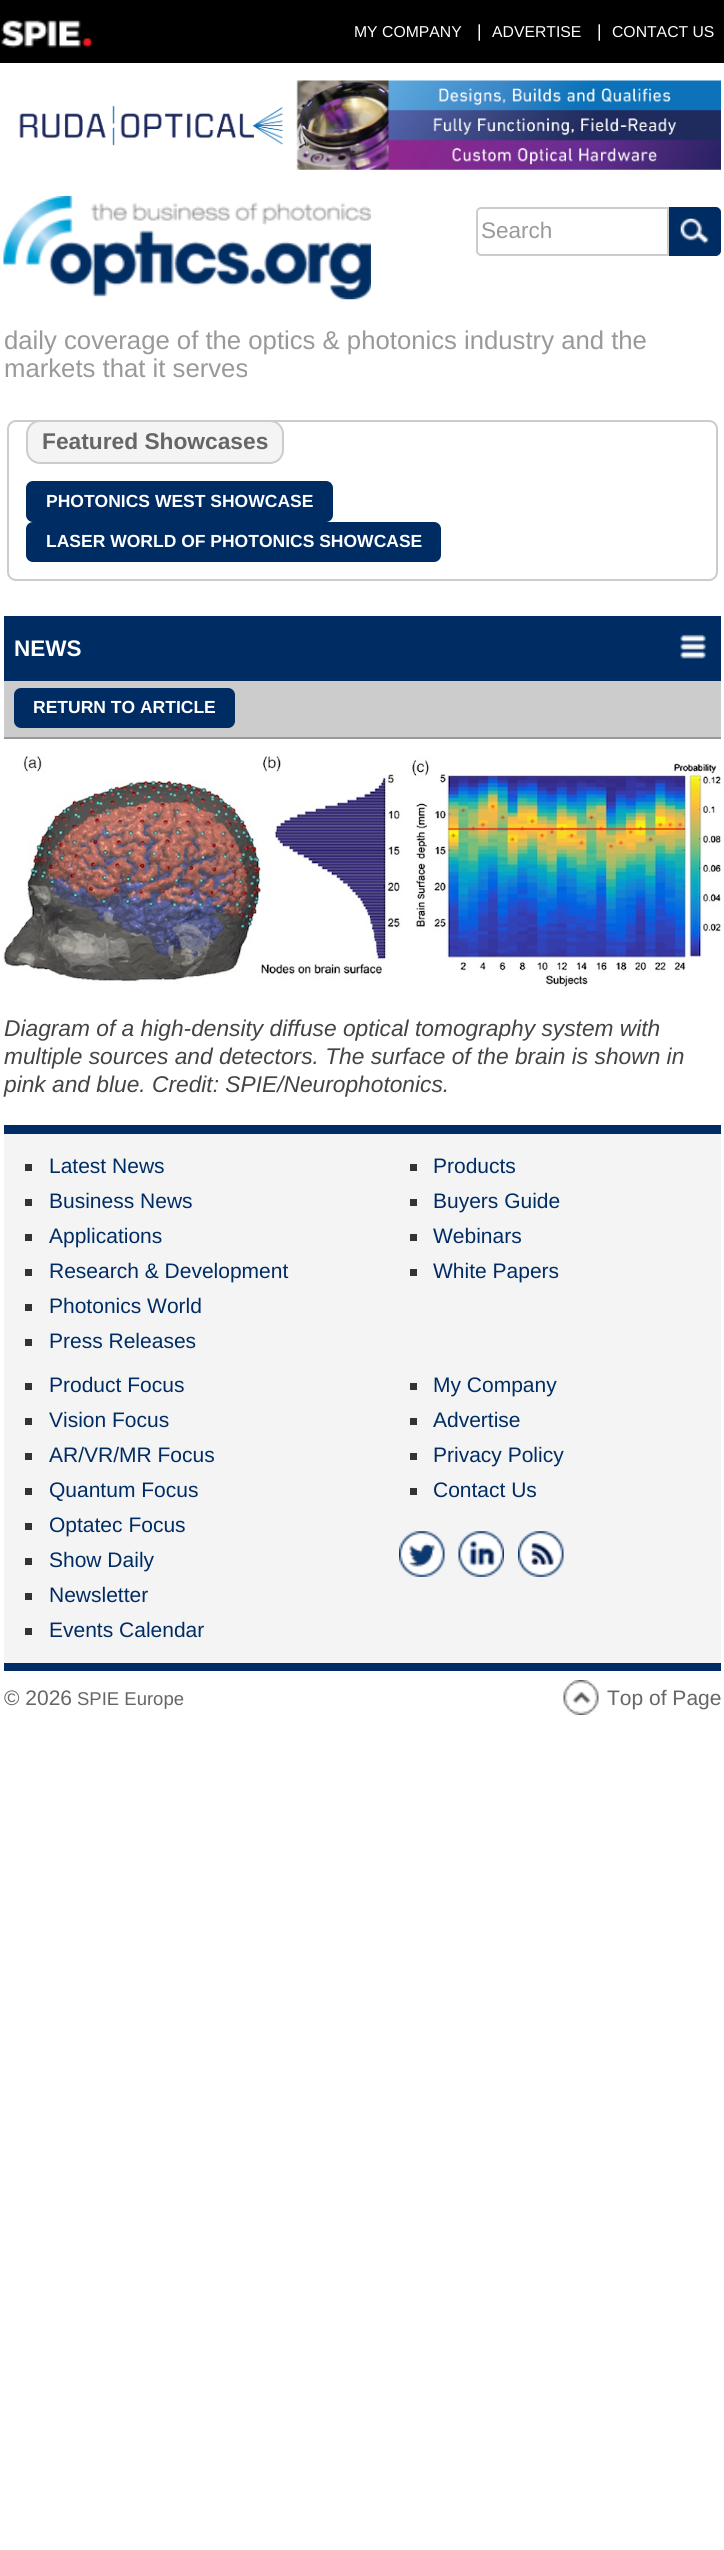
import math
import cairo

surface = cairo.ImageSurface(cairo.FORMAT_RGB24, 724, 2550)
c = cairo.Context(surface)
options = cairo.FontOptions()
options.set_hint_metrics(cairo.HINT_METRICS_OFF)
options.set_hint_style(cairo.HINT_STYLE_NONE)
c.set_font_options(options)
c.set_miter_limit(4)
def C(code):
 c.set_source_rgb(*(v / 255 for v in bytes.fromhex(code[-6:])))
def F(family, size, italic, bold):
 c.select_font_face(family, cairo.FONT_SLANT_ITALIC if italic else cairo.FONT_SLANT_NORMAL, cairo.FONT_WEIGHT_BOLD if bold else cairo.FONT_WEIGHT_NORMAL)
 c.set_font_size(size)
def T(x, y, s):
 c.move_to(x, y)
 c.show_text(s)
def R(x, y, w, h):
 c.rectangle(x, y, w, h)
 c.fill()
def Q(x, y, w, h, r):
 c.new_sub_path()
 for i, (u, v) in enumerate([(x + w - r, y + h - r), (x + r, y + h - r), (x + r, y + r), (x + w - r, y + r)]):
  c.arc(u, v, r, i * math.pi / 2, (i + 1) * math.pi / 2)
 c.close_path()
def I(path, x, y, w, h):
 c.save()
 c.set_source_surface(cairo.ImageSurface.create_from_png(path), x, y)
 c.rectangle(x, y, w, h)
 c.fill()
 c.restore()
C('ffffff')
c.paint()
C('000000')
R(0,0,724,63)
I('1.png',1,20,92,28)
F('Liberation Sans',15.75,0,0)
C('ffffff')
T(354,37,'MY COMPANY')
F('Liberation Sans',17.5,0,0)
T(477,37,'|')
F('Liberation Sans',15.75,0,0)
T(492,37,'ADVERTISE')
F('Liberation Sans',17.5,0,0)
T(597,37,'|')
F('Liberation Sans',15.75,0,0)
T(612,37,'CONTACT US')
I('2.png',19,80,702,90)
I('3.png',3,196,368,104)
c.new_path()
c.move_to(481,208)
c.line_to(668,208)
c.line_to(668,255)
c.line_to(481,255)
c.curve_to(479,255,477,253,477,251)
c.line_to(477,212)
c.curve_to(477,210,479,208,481,208)
c.close_path()
C('cccccc')
c.stroke()
F('Liberation Sans',22.5,0,0)
C('999999')
T(481,238,'Search')
c.new_path()
c.move_to(670,208)
c.line_to(716,208)
c.curve_to(718,208,720,210,720,212)
c.line_to(720,251)
c.curve_to(720,253,718,255,716,255)
c.line_to(670,255)
c.close_path()
C('002c64')
c.stroke()
R(671,209,48,45)
I('4.png',680,218,29,26)
F('Liberation Sans',25.7,0,0)
C('999999')
T(4,349,'daily coverage of the optics & photonics industry and the')
T(4,377,'markets that it serves')
Q(8,421,709,159,8)
C('cccccc')
c.stroke()
C('f4f4f4')
Q(27,421,256,42,13)
c.fill_preserve()
C('cccccc')
c.stroke()
F('Liberation Sans',22.75,0,1)
C('666666')
T(42,449,'Featured Showcases')
C('002c64')
Q(27,482,305,39,6)
c.fill_preserve()
c.stroke()
F('Liberation Sans',17.5,0,1)
C('ffffff')
T(46,507,'PHOTONICS WEST SHOWCASE')
C('002c64')
Q(27,523,413,38,6)
c.fill_preserve()
c.stroke()
C('ffffff')
T(46,547,'LASER WORLD OF PHOTONICS SHOWCASE')
C('002c64')
R(4,616,717,65)
F('Liberation Sans',22.5,0,1)
C('ffffff')
T(14,656,'NEWS')
I('5.png',680,634,26,25)
C('cccccc')
R(4,681,717,56)
C('999999')
R(4,737,717,2)
C('002c64')
Q(15,689,219,38,6)
c.fill_preserve()
c.stroke()
F('Liberation Sans',17.5,0,1)
C('ffffff')
T(33,713,'RETURN TO ARTICLE')
I('6.png',3,756,718,231)
F('Liberation Sans',22.75,1,0)
C('444444')
T(4,1036,'Diagram of a high-density diffuse optical tomography system with')
T(4,1064,'multiple sources and detectors. The surface of the brain is shown in')
T(4,1092,'pink and blue. Credit: SPIE/Neurophotonics.')
C('f4f4f4')
R(4,1134,717,529)
C('002c64')
R(4,1125,717,9)
R(4,1663,717,8)
C('333333')
R(25,1164,7,7)
F('Liberation Sans',21,0,0)
C('002c64')
T(49,1173,'Latest News')
C('333333')
R(25,1199,7,7)
C('002c64')
T(49,1208,'Business News')
C('333333')
R(25,1234,7,7)
C('002c64')
T(49,1243,'Applications')
C('333333')
R(25,1269,7,7)
C('002c64')
T(49,1278,'Research & Development')
C('333333')
R(25,1304,7,7)
C('002c64')
T(49,1313,'Photonics World')
C('333333')
R(25,1339,7,7)
C('002c64')
T(49,1348,'Press Releases')
C('333333')
R(410,1164,7,7)
C('002c64')
T(433,1173,'Products')
C('333333')
R(410,1199,7,7)
C('002c64')
T(433,1208,'Buyers Guide')
C('333333')
R(410,1234,7,7)
C('002c64')
T(433,1243,'Webinars')
C('333333')
R(410,1269,7,7)
C('002c64')
T(433,1278,'White Papers')
C('333333')
R(25,1383,7,7)
C('002c64')
T(49,1392,'Product Focus')
C('333333')
R(25,1418,7,7)
C('002c64')
T(49,1427,'Vision Focus')
C('333333')
R(25,1453,7,7)
C('002c64')
T(49,1462,'AR/VR/MR Focus')
C('333333')
R(25,1488,7,7)
C('002c64')
T(49,1497,'Quantum Focus')
C('333333')
R(25,1523,7,7)
C('002c64')
T(49,1532,'Optatec Focus')
C('333333')
R(25,1558,7,7)
C('002c64')
T(49,1567,'Show Daily')
C('333333')
R(25,1593,7,7)
C('002c64')
T(49,1602,'Newsletter')
C('333333')
R(25,1628,7,7)
C('002c64')
T(49,1637,'Events Calendar')
C('333333')
R(410,1383,7,7)
C('002c64')
T(433,1392,'My Company')
C('333333')
R(410,1418,7,7)
C('002c64')
T(433,1427,'Advertise')
C('333333')
R(410,1453,7,7)
C('002c64')
T(433,1462,'Privacy Policy')
C('333333')
R(410,1488,7,7)
C('002c64')
T(433,1497,'Contact Us')
I('7.png',399,1531,46,46)
I('8.png',458,1531,46,46)
I('9.png',518,1531,46,46)
C('666666')
T(4,1705,'© 2026')
F('Liberation Sans',18.5,0,0)
T(77,1705,'SPIE Europe')
I('10.png',563,1680,36,35)
F('Liberation Sans',21,0,0)
T(607,1705,'Top of Page')
surface.write_to_png('o.png')
